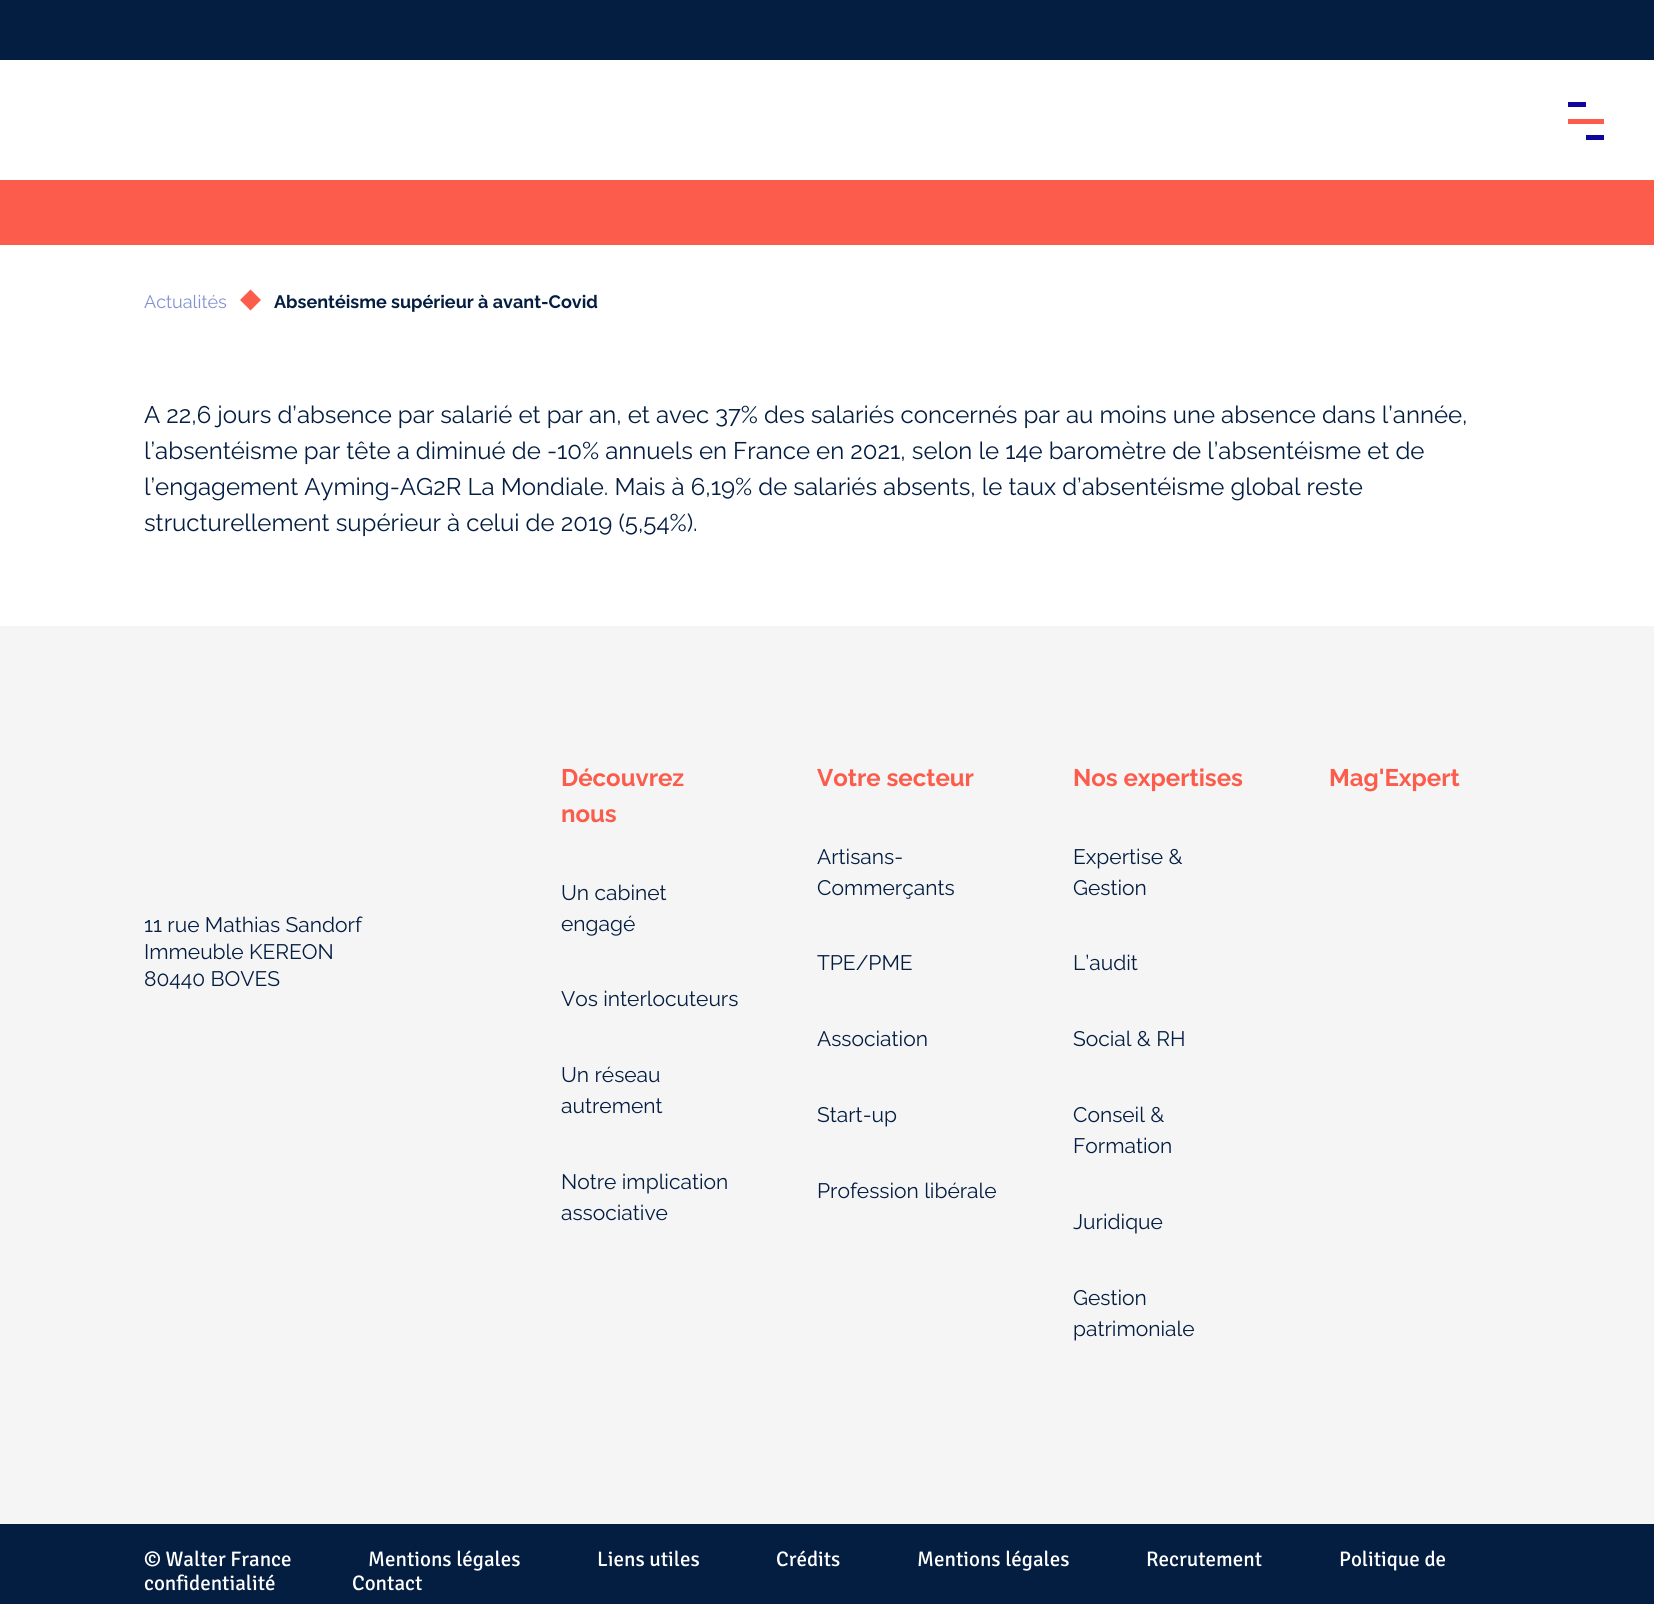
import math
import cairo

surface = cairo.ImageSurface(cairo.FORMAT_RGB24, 1654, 1604)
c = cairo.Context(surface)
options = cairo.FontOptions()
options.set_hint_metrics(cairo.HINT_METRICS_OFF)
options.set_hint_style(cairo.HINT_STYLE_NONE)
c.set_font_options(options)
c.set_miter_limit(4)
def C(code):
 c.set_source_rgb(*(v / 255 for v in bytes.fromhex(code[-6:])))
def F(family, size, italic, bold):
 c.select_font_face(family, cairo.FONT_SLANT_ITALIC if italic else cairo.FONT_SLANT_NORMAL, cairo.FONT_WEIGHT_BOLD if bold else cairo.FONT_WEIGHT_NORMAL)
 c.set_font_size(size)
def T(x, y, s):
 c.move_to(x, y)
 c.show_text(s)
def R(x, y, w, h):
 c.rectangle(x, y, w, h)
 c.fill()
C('ffffff')
c.paint()
C('041e42')
R(0,0,1654,60)
C('10069f')
R(1568,102,18,5)
C('fb5c4b')
R(1568,119,36,5)
C('10069f')
R(1586,135,18,5)
C('fb5c4b')
R(0,180,1654,65)
F('Raleway',18,0,0)
C('8292cf')
T(144,308,'Actualités')
C('fb5c4b')
c.new_path()
c.move_to(250.5,289.5)
c.line_to(261,300)
c.line_to(250.5,310.5)
c.line_to(240,300)
c.close_path()
c.fill()
F('Raleway',18,0,1)
C('041e42')
T(274,308,'Absentéisme supérieur à avant-Covid')
F('Raleway',24,0,0)
T(144,423,'A 22,6 jours d’absence par salarié et par an, et avec 37% des salariés concernés par au moins une absence dans l’année,')
T(144,459,'l’absentéisme par tête a diminué de -10% annuels en France en 2021, selon le 14e baromètre de l’absentéisme et de')
T(144,495,'l’engagement Ayming-AG2R La Mondiale. Mais à 6,19% de salariés absents, le taux d’absentéisme global reste')
T(144,531,'structurellement supérieur à celui de 2019 (5,54%).')
C('f5f5f5')
R(0,626,1654,898)
F('Raleway',21,0,0)
C('041e42')
T(144,932,'11 rue Mathias Sandorf')
T(144,959,'Immeuble KEREON')
T(144,986,'80440 BOVES')
F('Raleway',24,0,1)
C('fb5c4b')
T(561,786,'Découvrez')
T(561,822,'nous')
F('Raleway',21,0,0)
C('041e42')
T(561,900,'Un cabinet')
T(561,931,'engagé')
T(561,1006,'Vos interlocuteurs')
T(561,1082,'Un réseau')
T(561,1113,'autrement')
T(561,1189,'Notre implication')
T(561,1220,'associative')
F('Raleway',24,0,1)
C('fb5c4b')
T(817,786,'Votre secteur')
F('Raleway',21,0,0)
C('041e42')
T(817,864,'Artisans-')
T(817,895,'Commerçants')
T(817,970,'TPE/PME')
T(817,1046,'Association')
T(817,1122,'Start-up')
T(817,1198,'Profession libérale')
F('Raleway',24,0,1)
C('fb5c4b')
T(1073,786,'Nos expertises')
F('Raleway',21,0,0)
C('041e42')
T(1073,864,'Expertise &')
T(1073,895,'Gestion')
T(1073,970,'L’audit')
T(1073,1046,'Social & RH')
T(1073,1122,'Conseil &')
T(1073,1153,'Formation')
T(1073,1229,'Juridique')
T(1073,1305,'Gestion')
T(1073,1336,'patrimoniale')
F('Raleway',24,0,1)
C('fb5c4b')
T(1329,786,'Mag\'Expert')
C('041e42')
R(0,1524,1654,80)
F('Signika',21,0,0)
C('ffffff')
T(144,1566,'© Walter France')
T(368,1566,'Mentions légales')
T(597,1566,'Liens utiles')
T(776,1566,'Crédits')
T(917,1566,'Mentions légales')
T(1146,1566,'Recrutement')
T(1339,1566,'Politique de')
T(144,1590,'confidentialité')
T(352,1590,'Contact')
surface.write_to_png('o.png')
